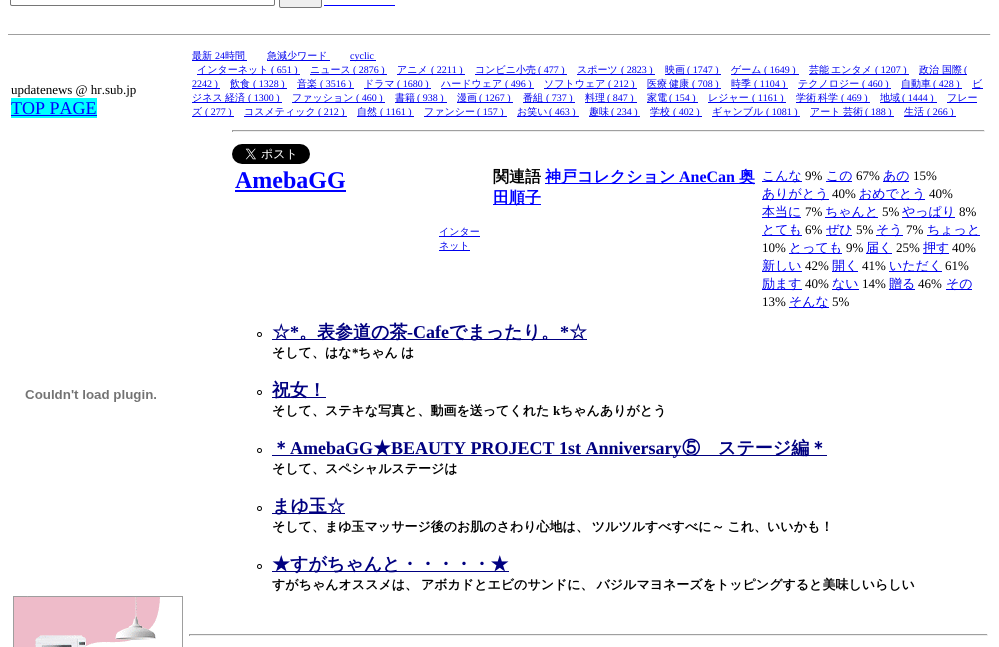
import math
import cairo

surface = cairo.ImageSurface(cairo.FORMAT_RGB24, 999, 647)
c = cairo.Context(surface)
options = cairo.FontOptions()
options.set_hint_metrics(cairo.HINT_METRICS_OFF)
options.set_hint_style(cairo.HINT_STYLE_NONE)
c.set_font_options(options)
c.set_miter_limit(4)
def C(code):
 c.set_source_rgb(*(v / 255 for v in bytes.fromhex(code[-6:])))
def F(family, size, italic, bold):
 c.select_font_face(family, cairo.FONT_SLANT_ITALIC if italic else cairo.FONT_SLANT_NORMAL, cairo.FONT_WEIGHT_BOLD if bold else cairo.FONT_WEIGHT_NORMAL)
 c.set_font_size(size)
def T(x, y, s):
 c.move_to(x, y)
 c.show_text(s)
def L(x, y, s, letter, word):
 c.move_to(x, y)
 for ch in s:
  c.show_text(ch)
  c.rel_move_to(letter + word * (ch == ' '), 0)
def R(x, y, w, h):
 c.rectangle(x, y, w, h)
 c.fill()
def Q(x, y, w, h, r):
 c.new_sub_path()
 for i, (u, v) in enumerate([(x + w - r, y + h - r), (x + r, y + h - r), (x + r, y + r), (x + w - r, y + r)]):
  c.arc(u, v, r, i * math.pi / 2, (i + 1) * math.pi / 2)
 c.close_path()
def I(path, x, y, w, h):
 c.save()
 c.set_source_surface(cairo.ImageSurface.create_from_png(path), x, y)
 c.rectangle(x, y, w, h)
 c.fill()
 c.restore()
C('ffffff')
c.paint()
Q(10.5,-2.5,264,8,1.5)
C('767676')
c.set_line_width(1)
c.stroke()
C('efefef')
Q(279.5,-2.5,42,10,1.5)
c.fill_preserve()
C('767676')
c.stroke()
C('0000ff')
R(324,5,71,1)
C('9f9f9f')
R(8,34,983,1)
C('eeeeee')
R(990,34,1,1)
F('Liberation Serif',13,0,0)
C('000000')
T(11,94,'updatenews @ hr.sub.jp')
C('00ffff')
R(11,98,86,20)
F('Liberation Serif',18,0,0)
C('0000ff')
T(11,114,'TOP PAGE')
R(11,115,86,1)
I('1.png',25,390,131,12)
I('2.png',13,596,170,51)
C('0000ee')
R(192,60,55,1)
F('WenQuanYi Zen Hei Medium',10,0,0)
T(192,59,'最新')
F('Liberation Serif',10,0,0)
T(215,59,'24')
F('WenQuanYi Zen Hei Medium',10,0,0)
T(225,59,'時間')
R(267,60,63,1)
T(267,59,'急減少ワード')
R(350,60,26,1)
F('Liberation Serif',10,0,0)
T(350,59,'cyclic')
R(197,74,103,1)
F('WenQuanYi Zen Hei Medium',10,0,0)
T(197,73,'インターネット')
F('Liberation Serif',10,0,0)
T(271,73,'( 651 )')
F('WenQuanYi Zen Hei Medium',10,0,0)
T(310,73,'ニュース')
R(310,74,77,1)
F('Liberation Serif',10,0,0)
T(353,73,'( 2876 )')
F('WenQuanYi Zen Hei Medium',10,0,0)
T(397,73,'アニメ')
R(397,74,68,1)
F('Liberation Serif',10,0,0)
T(431,73,'( 2211 )')
R(475,74,92,1)
F('WenQuanYi Zen Hei Medium',10,0,0)
T(475,73,'コンビニ小売')
F('Liberation Serif',10,0,0)
T(538,73,'( 477 )')
R(577,74,78,1)
F('WenQuanYi Zen Hei Medium',10,0,0)
T(577,73,'スポーツ')
F('Liberation Serif',10,0,0)
T(621,73,'( 2823 )')
R(665,74,56,1)
F('WenQuanYi Zen Hei Medium',10,0,0)
T(665,73,'映画')
F('Liberation Serif',10,0,0)
T(687,73,'( 1747 )')
R(731,74,68,1)
F('WenQuanYi Zen Hei Medium',10,0,0)
T(731,73,'ゲーム')
F('Liberation Serif',10,0,0)
T(764,73,'( 1649 )')
R(809,74,100,1)
F('WenQuanYi Zen Hei Medium',10,0,0)
T(809,73,'芸能')
T(831,73,'エンタメ')
F('Liberation Serif',10,0,0)
T(875,73,'( 1207 )')
R(919,74,48,1)
F('WenQuanYi Zen Hei Medium',10,0,0)
T(919,73,'政治 国際')
F('Liberation Serif',10,0,0)
T(964,73,'(')
R(192,88,28,1)
T(192,87,'2242 )')
R(230,88,57,1)
F('WenQuanYi Zen Hei Medium',10,0,0)
T(230,87,'飲食')
F('Liberation Serif',10,0,0)
T(253,87,'( 1328 )')
R(297,88,57,1)
F('WenQuanYi Zen Hei Medium',10,0,0)
T(297,87,'音楽')
F('Liberation Serif',10,0,0)
T(320,87,'( 3516 )')
R(364,88,67,1)
F('WenQuanYi Zen Hei Medium',10,0,0)
T(364,87,'ドラマ')
F('Liberation Serif',10,0,0)
T(397,87,'( 1680 )')
R(441,88,93,1)
F('WenQuanYi Zen Hei Medium',10,0,0)
T(441,87,'ハードウェア')
F('Liberation Serif',10,0,0)
T(505,87,'( 496 )')
R(544,88,93,1)
F('WenQuanYi Zen Hei Medium',10,0,0)
T(544,87,'ソフトウェア')
F('Liberation Serif',10,0,0)
T(608,87,'( 212 )')
R(647,88,74,1)
F('WenQuanYi Zen Hei Medium',10,0,0)
T(647,87,'医療')
T(669,87,'健康')
F('Liberation Serif',10,0,0)
T(692,87,'( 708 )')
R(731,88,57,1)
F('WenQuanYi Zen Hei Medium',10,0,0)
T(731,87,'時季')
F('Liberation Serif',10,0,0)
T(754,87,'( 1104 )')
R(798,88,93,1)
F('WenQuanYi Zen Hei Medium',10,0,0)
T(798,87,'テクノロジー')
F('Liberation Serif',10,0,0)
T(862,87,'( 460 )')
R(901,88,61,1)
F('WenQuanYi Zen Hei Medium',10,0,0)
T(901,87,'自動車')
F('Liberation Serif',10,0,0)
T(933,87,'( 428 )')
F('WenQuanYi Zen Hei Medium',10,0,0)
T(972,87,'ビ')
R(972,88,11,1)
R(192,102,90,1)
T(192,101,'ジネス')
T(225,101,'経済')
F('Liberation Serif',10,0,0)
T(248,101,'( 1300 )')
R(292,102,93,1)
F('WenQuanYi Zen Hei Medium',10,0,0)
T(292,101,'ファッション')
F('Liberation Serif',10,0,0)
T(356,101,'( 460 )')
R(395,102,52,1)
F('WenQuanYi Zen Hei Medium',10,0,0)
T(395,101,'書籍')
F('Liberation Serif',10,0,0)
T(417,101,'( 938 )')
R(457,102,56,1)
F('WenQuanYi Zen Hei Medium',10,0,0)
T(457,101,'漫画')
F('Liberation Serif',10,0,0)
T(479,101,'( 1267 )')
R(523,102,52,1)
F('WenQuanYi Zen Hei Medium',10,0,0)
T(523,101,'番組')
F('Liberation Serif',10,0,0)
T(546,101,'( 737 )')
R(585,102,52,1)
F('WenQuanYi Zen Hei Medium',10,0,0)
T(585,101,'料理')
F('Liberation Serif',10,0,0)
T(607,101,'( 847 )')
R(647,102,51,1)
F('WenQuanYi Zen Hei Medium',10,0,0)
T(647,101,'家電')
F('Liberation Serif',10,0,0)
T(669,101,'( 154 )')
R(708,102,78,1)
F('WenQuanYi Zen Hei Medium',10,0,0)
T(708,101,'レジャー')
F('Liberation Serif',10,0,0)
T(752,101,'( 1161 )')
R(796,102,74,1)
F('WenQuanYi Zen Hei Medium',10,0,0)
T(796,101,'学術')
T(818,101,'科学')
F('Liberation Serif',10,0,0)
T(841,101,'( 469 )')
R(880,102,57,1)
F('WenQuanYi Zen Hei Medium',10,0,0)
T(880,101,'地域')
F('Liberation Serif',10,0,0)
T(902,101,'( 1444 )')
F('WenQuanYi Zen Hei Medium',10,0,0)
T(947,101,'フレー')
R(947,102,30,1)
T(192,115,'ズ')
R(192,116,42,1)
F('Liberation Serif',10,0,0)
T(205,115,'( 277 )')
R(244,116,103,1)
F('WenQuanYi Zen Hei Medium',10,0,0)
T(244,115,'コスメティック')
F('Liberation Serif',10,0,0)
T(318,115,'( 212 )')
R(357,116,57,1)
F('WenQuanYi Zen Hei Medium',10,0,0)
T(357,115,'自然')
F('Liberation Serif',10,0,0)
T(380,115,'( 1161 )')
F('WenQuanYi Zen Hei Medium',10,0,0)
T(424,115,'ファンシー')
R(424,116,83,1)
F('Liberation Serif',10,0,0)
T(477,115,'( 157 )')
R(517,116,62,1)
F('WenQuanYi Zen Hei Medium',10,0,0)
T(517,115,'お笑い')
F('Liberation Serif',10,0,0)
T(549,115,'( 463 )')
R(589,116,51,1)
F('WenQuanYi Zen Hei Medium',10,0,0)
T(589,115,'趣味')
F('Liberation Serif',10,0,0)
T(611,115,'( 234 )')
R(650,116,52,1)
F('WenQuanYi Zen Hei Medium',10,0,0)
T(650,115,'学校')
F('Liberation Serif',10,0,0)
T(673,115,'( 402 )')
R(712,116,88,1)
F('WenQuanYi Zen Hei Medium',10,0,0)
T(712,115,'ギャンブル')
F('Liberation Serif',10,0,0)
T(766,115,'( 1081 )')
R(810,116,84,1)
F('WenQuanYi Zen Hei Medium',10,0,0)
T(810,115,'アート')
T(843,115,'芸術')
F('Liberation Serif',10,0,0)
T(865,115,'( 188 )')
R(904,116,52,1)
F('WenQuanYi Zen Hei Medium',10,0,0)
T(904,115,'生活')
F('Liberation Serif',10,0,0)
T(927,115,'( 266 )')
C('9f9f9f')
R(232,130,753,1)
C('eeeeee')
R(984,130,1,2)
R(232,131,753,1)
C('9f9f9f')
R(232,130,1,2)
I('3.png',232,144,78,20)
F('Liberation Serif',24,0,1)
C('0000ff')
T(235,188,'AmebaGG')
R(235,190,111,2)
F('WenQuanYi Zen Hei',16,0,1)
C('000000')
T(493,182,'関連語')
C('0000ff')
R(545,183,210,1)
T(545,182,'神戸コレクション')
F('Liberation Serif',16,0,1)
T(679,182,'AneCan')
F('WenQuanYi Zen Hei',16,0,1)
T(739,182,'奥')
R(493,204,48,1)
T(493,203,'田順子')
C('0000ee')
R(762,181,40,1)
F('WenQuanYi Zen Hei Medium',13,0,0)
T(762,180,'こんな')
F('Liberation Serif',13,0,0)
C('000000')
T(805,180,'9%')
C('0000ee')
R(826,181,26,1)
F('WenQuanYi Zen Hei Medium',13,0,0)
T(826,180,'この')
F('Liberation Serif',13,0,0)
C('000000')
T(856,180,'67%')
C('0000ee')
R(883,181,26,1)
F('WenQuanYi Zen Hei Medium',13,0,0)
T(883,180,'あの')
F('Liberation Serif',13,0,0)
C('000000')
T(913,180,'15%')
C('0000ee')
R(762,199,67,1)
F('WenQuanYi Zen Hei Medium',13,0,0)
T(762,198,'ありがとう')
F('Liberation Serif',13,0,0)
C('000000')
T(832,198,'40%')
C('0000ee')
R(859,199,66,1)
F('WenQuanYi Zen Hei Medium',13,0,0)
T(859,198,'おめでとう')
F('Liberation Serif',13,0,0)
C('000000')
T(929,198,'40%')
C('0000ee')
R(762,217,39,1)
F('WenQuanYi Zen Hei Medium',13,0,0)
T(762,216,'本当に')
F('Liberation Serif',13,0,0)
C('000000')
T(805,216,'7%')
C('0000ee')
R(825,217,53,1)
F('WenQuanYi Zen Hei Medium',13,0,0)
T(825,216,'ちゃんと')
F('Liberation Serif',13,0,0)
C('000000')
T(882,216,'5%')
C('0000ee')
R(902,217,53,1)
F('WenQuanYi Zen Hei Medium',13,0,0)
T(902,216,'やっぱり')
F('Liberation Serif',13,0,0)
C('000000')
T(959,216,'8%')
C('0000ee')
R(762,235,40,1)
F('WenQuanYi Zen Hei Medium',13,0,0)
T(762,234,'とても')
F('Liberation Serif',13,0,0)
C('000000')
T(805,234,'6%')
C('0000ee')
R(826,235,26,1)
F('WenQuanYi Zen Hei Medium',13,0,0)
T(826,234,'ぜひ')
F('Liberation Serif',13,0,0)
C('000000')
T(856,234,'5%')
C('0000ee')
R(876,235,27,1)
F('WenQuanYi Zen Hei Medium',13,0,0)
T(876,234,'そう')
F('Liberation Serif',13,0,0)
C('000000')
T(906,234,'7%')
C('0000ee')
R(927,235,53,1)
F('WenQuanYi Zen Hei Medium',13,0,0)
T(927,234,'ちょっと')
F('Liberation Serif',13,0,0)
C('000000')
T(762,252,'10%')
C('0000ee')
R(789,253,53,1)
F('WenQuanYi Zen Hei Medium',13,0,0)
T(789,252,'とっても')
F('Liberation Serif',13,0,0)
C('000000')
T(846,252,'9%')
C('0000ee')
R(866,253,26,1)
F('WenQuanYi Zen Hei Medium',13,0,0)
T(866,252,'届く')
F('Liberation Serif',13,0,0)
C('000000')
T(896,252,'25%')
C('0000ee')
R(923,253,26,1)
F('WenQuanYi Zen Hei Medium',13,0,0)
T(923,252,'押す')
F('Liberation Serif',13,0,0)
C('000000')
T(952,252,'40%')
C('0000ee')
R(762,271,40,1)
F('WenQuanYi Zen Hei Medium',13,0,0)
T(762,270,'新しい')
F('Liberation Serif',13,0,0)
C('000000')
T(805,270,'42%')
C('0000ee')
R(832,271,26,1)
F('WenQuanYi Zen Hei Medium',13,0,0)
T(832,270,'開く')
F('Liberation Serif',13,0,0)
C('000000')
T(862,270,'41%')
C('0000ee')
R(889,271,53,1)
F('WenQuanYi Zen Hei Medium',13,0,0)
T(889,270,'いただく')
F('Liberation Serif',13,0,0)
C('000000')
T(945,270,'61%')
C('0000ee')
R(762,289,40,1)
F('WenQuanYi Zen Hei Medium',13,0,0)
T(762,288,'励ます')
F('Liberation Serif',13,0,0)
C('000000')
T(805,288,'40%')
C('0000ee')
R(832,289,27,1)
F('WenQuanYi Zen Hei Medium',13,0,0)
T(832,288,'ない')
F('Liberation Serif',13,0,0)
C('000000')
T(862,288,'14%')
C('0000ee')
R(889,289,26,1)
F('WenQuanYi Zen Hei Medium',13,0,0)
T(889,288,'贈る')
F('Liberation Serif',13,0,0)
C('000000')
T(918,288,'46%')
C('0000ee')
R(946,289,26,1)
F('WenQuanYi Zen Hei Medium',13,0,0)
T(946,288,'その')
F('Liberation Serif',13,0,0)
C('000000')
T(762,306,'13%')
C('0000ee')
R(789,307,40,1)
F('WenQuanYi Zen Hei Medium',13,0,0)
T(789,306,'そんな')
F('Liberation Serif',13,0,0)
C('000000')
T(832,306,'5%')
C('0000ee')
R(439,236,41,1)
F('WenQuanYi Zen Hei Medium',10,0,0)
T(439,235,'インター')
R(439,250,31,1)
T(439,249,'ネット')
C('000080')
R(272,339,315,1)
F('WenQuanYi Zen Hei',18,0,1)
T(272,338,'☆')
F('Liberation Serif',18,0,1)
T(290,338,'*')
F('WenQuanYi Zen Hei',18,0,1)
T(299,338,'。表参道の茶')
F('Liberation Serif',18,0,1)
T(407,338,'-Cafe')
F('WenQuanYi Zen Hei',18,0,1)
T(449,338,'でまったり。')
F('Liberation Serif',18,0,1)
T(560,338,'*')
F('WenQuanYi Zen Hei',18,0,1)
T(569,338,'☆')
c.new_path()
c.arc(259.5,334.5,2,0,2 * math.pi)
C('000000')
c.stroke()
F('WenQuanYi Zen Hei',13,0,1)
T(272,357,'そして、はな')
F('Liberation Serif',13,0,1)
T(352,357,'*')
F('WenQuanYi Zen Hei',13,0,1)
T(358,357,'ちゃん')
T(401,357,'は')
c.new_path()
c.arc(259.5,392.5,2,0,2 * math.pi)
c.stroke()
C('000080')
R(272,397,54,1)
F('WenQuanYi Zen Hei',18,0,1)
T(272,396,'祝女！')
F('WenQuanYi Zen Hei',13,0,1)
C('000000')
T(272,415,'そして、ステキな写真と、動画を送ってくれた')
F('Liberation Serif',13,0,1)
T(553,415,'k')
F('WenQuanYi Zen Hei',13,0,1)
T(560,415,'ちゃんありがとう')
c.new_path()
c.arc(259.5,450.5,2,0,2 * math.pi)
c.stroke()
F('WenQuanYi Zen Hei',18,0,1)
C('000080')
T(272,454,'＊')
F('Liberation Serif',18,0,1)
T(290,454,'AmebaGG')
R(272,455,555,1)
F('WenQuanYi Zen Hei',18,0,1)
T(373,454,'★')
F('Liberation Serif',18,0,1)
T(391,454,'BEAUTY PROJECT 1st Anniversary')
F('WenQuanYi Zen Hei',18,0,1)
T(682,454,'⑤　ステージ編＊')
F('WenQuanYi Zen Hei',13,0,1)
C('000000')
T(272,473,'そして、スペシャルステージは')
c.new_path()
c.arc(259.5,508.5,2,0,2 * math.pi)
c.stroke()
C('000080')
R(272,513,73,1)
F('WenQuanYi Zen Hei',18,0,1)
T(272,512,'まゆ玉☆')
F('WenQuanYi Zen Hei',13,0,1)
C('000000')
L(272,531,'そして、まゆ玉マッサージ後のお肌のさわり心地は、 ツルツルすべすべに～ これ、いいかも！',0,-1)
c.new_path()
c.arc(259.5,566.5,2,0,2 * math.pi)
c.stroke()
C('000080')
R(272,571,237,1)
F('WenQuanYi Zen Hei',18,0,1)
T(272,570,'★すがちゃんと・・・・・★')
F('WenQuanYi Zen Hei',13,0,1)
C('000000')
L(272,589,'すがちゃんオススメは、 アボカドとエビのサンドに、 バジルマヨネーズをトッピングすると美味しいらしい',0,-1)
C('9f9f9f')
R(189,634,799,1)
C('eeeeee')
R(987,634,1,2)
R(189,635,799,1)
C('9f9f9f')
R(189,634,1,2)
surface.write_to_png('o.png')
